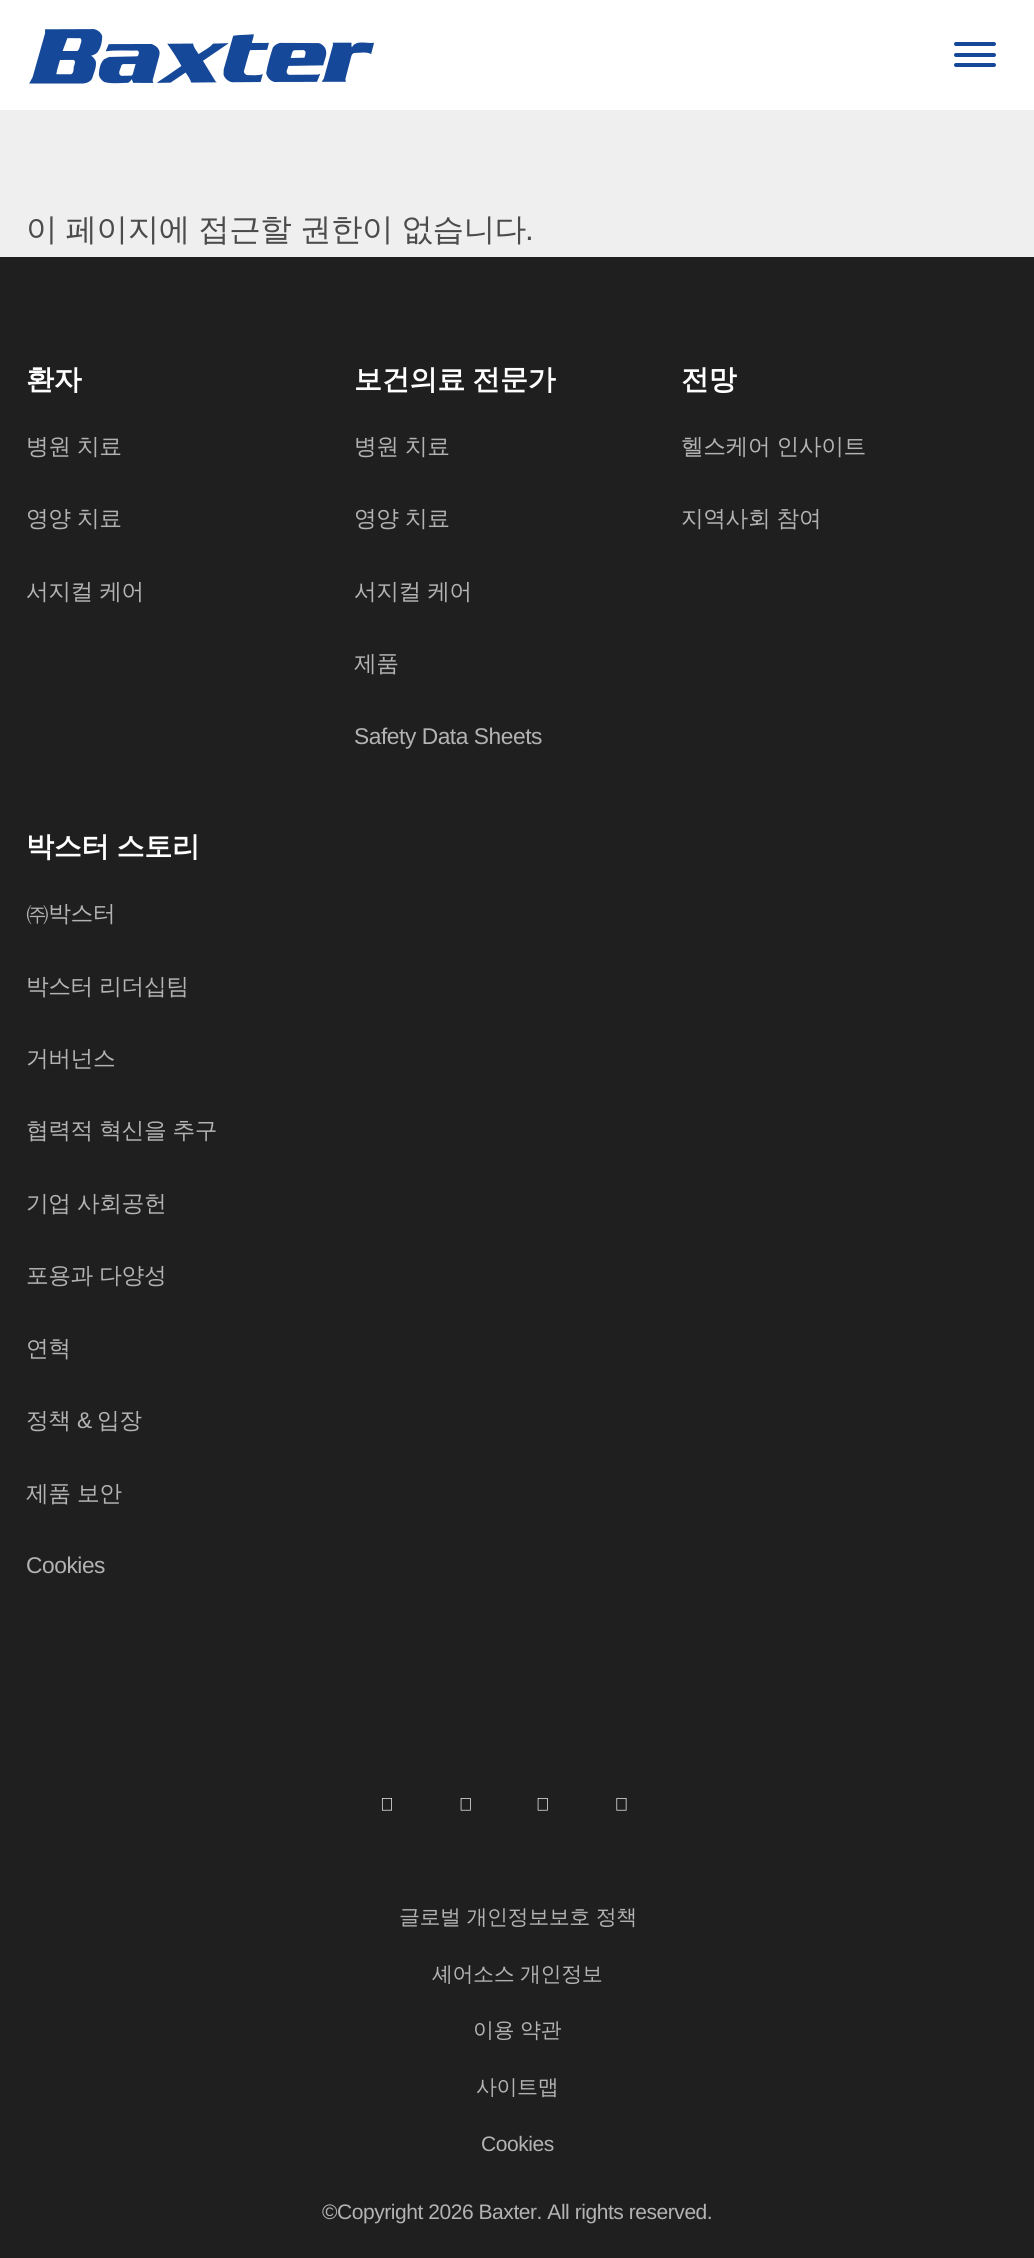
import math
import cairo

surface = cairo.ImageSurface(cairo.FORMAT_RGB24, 1034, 2258)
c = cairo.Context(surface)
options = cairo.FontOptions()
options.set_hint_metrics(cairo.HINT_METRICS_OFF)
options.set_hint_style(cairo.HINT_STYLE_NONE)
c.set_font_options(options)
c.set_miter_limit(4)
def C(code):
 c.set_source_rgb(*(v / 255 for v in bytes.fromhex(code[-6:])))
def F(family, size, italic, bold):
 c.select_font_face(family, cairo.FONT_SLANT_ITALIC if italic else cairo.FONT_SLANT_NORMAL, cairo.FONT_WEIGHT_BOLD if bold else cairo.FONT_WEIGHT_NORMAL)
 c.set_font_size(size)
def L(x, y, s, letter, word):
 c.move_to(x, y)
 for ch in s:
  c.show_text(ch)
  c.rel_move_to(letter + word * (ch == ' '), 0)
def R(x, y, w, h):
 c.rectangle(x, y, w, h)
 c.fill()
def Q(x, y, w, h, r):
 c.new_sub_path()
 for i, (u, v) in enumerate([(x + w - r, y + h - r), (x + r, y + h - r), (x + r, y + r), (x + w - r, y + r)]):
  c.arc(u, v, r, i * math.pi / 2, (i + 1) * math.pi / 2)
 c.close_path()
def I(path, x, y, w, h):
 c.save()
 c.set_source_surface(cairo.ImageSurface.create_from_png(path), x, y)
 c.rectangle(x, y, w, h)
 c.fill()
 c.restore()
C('efefef')
c.paint()
C('ffffff')
R(0,0,1034,110)
I('1.png',29,29,345,55)
C('154898')
Q(954,53,42,4,2)
c.fill()
Q(954,42,42,4,2)
c.fill()
Q(954,63,42,4,2)
c.fill()
F('WenQuanYi Zen Hei Medium',31.5,0,0)
C('4b4b4b')
L(26,240,'이 페이지에 접근할 권한이 없습니다',-.45,-.5)
F('Liberation Sans',31.5,0,0)
L(525,240,'.',-.45,0)
C('1f1f1f')
R(0,257,1034,2001)
F('WenQuanYi Zen Hei',28,0,1)
C('ffffff')
L(26,389,'환자',-.25,0)
F('WenQuanYi Zen Hei Medium',22.75,0,0)
C('b3b3b3')
L(26,454,'병원 치료',-.45,0)
L(26,526,'영양 치료',-.45,0)
L(26,599,'서지컬 케어',-.45,0)
F('WenQuanYi Zen Hei',28,0,1)
C('ffffff')
L(354,389,'보건의료 전문가',-.25,-1)
F('WenQuanYi Zen Hei Medium',22.75,0,0)
C('b3b3b3')
L(354,454,'병원 치료',-.45,0)
L(354,526,'영양 치료',-.45,0)
L(354,599,'서지컬 케어',-.45,0)
L(354,671,'제품',-.45,0)
F('Liberation Sans',22.75,0,0)
L(354,744,'Safety Data Sheets',-.45,0)
F('WenQuanYi Zen Hei',28,0,1)
C('ffffff')
L(681,389,'전망',-.25,0)
F('WenQuanYi Zen Hei Medium',22.75,0,0)
C('b3b3b3')
L(681,454,'헬스케어 인사이트',-.45,0)
L(681,526,'지역사회 참여',-.45,0)
F('WenQuanYi Zen Hei',28,0,1)
C('ffffff')
L(26,856,'박스터 스토리',-.25,-1)
F('WenQuanYi Zen Hei Medium',22.75,0,0)
C('b3b3b3')
L(26,921,'㈜박스터',-.45,0)
L(26,994,'박스터 리더십팀',-.45,0)
L(26,1066,'거버넌스',-.45,0)
L(26,1138,'협력적 혁신을 추구',-.45,0)
L(26,1211,'기업 사회공헌',-.45,0)
L(26,1283,'포용과 다양성',-.45,0)
L(26,1356,'연혁',-.45,0)
L(26,1428,'정책',-.45,0)
F('Liberation Sans',22.75,0,0)
L(77,1428,'&',-.45,0)
F('WenQuanYi Zen Hei Medium',22.75,0,0)
L(97,1428,'입장',-.45,0)
L(26,1501,'제품 보안',-.45,0)
F('Liberation Sans',22.75,0,0)
L(26,1573,'Cookies',-.45,0)
I('2.png',381,1798,11,13)
I('3.png',460,1798,11,13)
I('3.png',537,1798,11,13)
I('4.png',616,1798,11,13)
F('WenQuanYi Zen Hei Medium',21,0,0)
L(399,1924,'글로벌 개인정보보호 정책',-.45,0)
L(432,1981,'셰어소스 개인정보',-.45,0)
L(473,2037,'이용 약관',-.45,0)
L(476,2094,'사이트맵',-.45,0)
F('Liberation Sans',21,0,0)
L(481,2151,'Cookies',-.45,0)
L(322,2219,'©Copyright 2026 Baxter. All rights reserved.',-.45,0)
surface.write_to_png('o.png')
